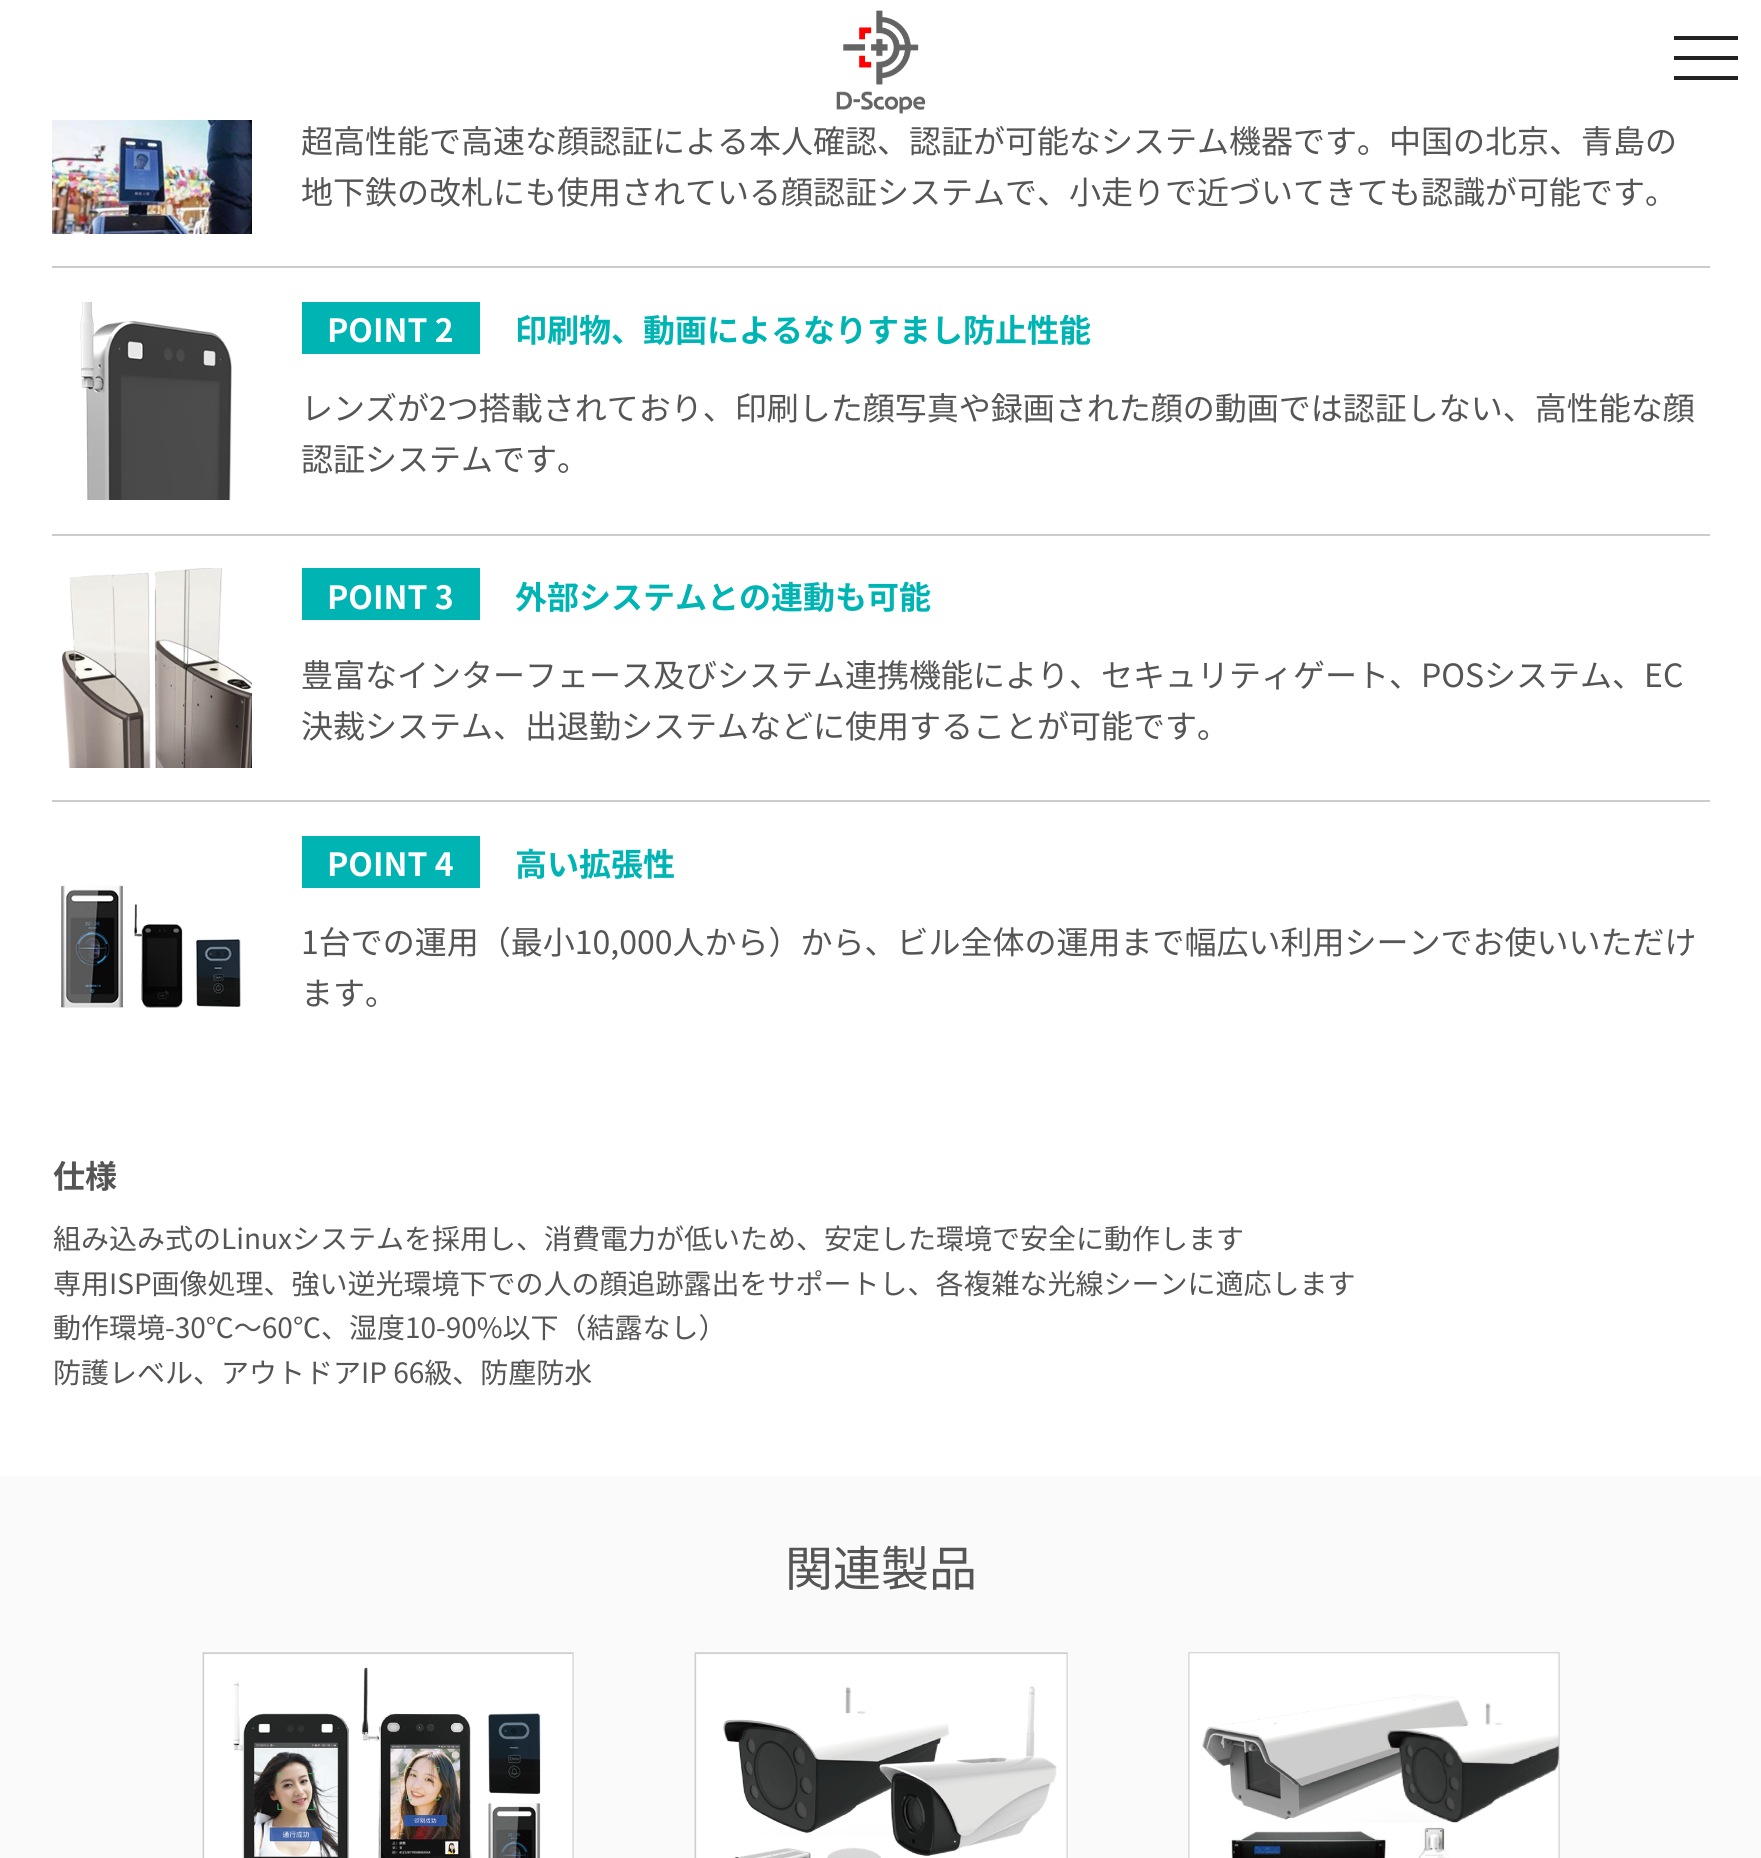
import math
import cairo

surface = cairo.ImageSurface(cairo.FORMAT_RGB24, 1761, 1858)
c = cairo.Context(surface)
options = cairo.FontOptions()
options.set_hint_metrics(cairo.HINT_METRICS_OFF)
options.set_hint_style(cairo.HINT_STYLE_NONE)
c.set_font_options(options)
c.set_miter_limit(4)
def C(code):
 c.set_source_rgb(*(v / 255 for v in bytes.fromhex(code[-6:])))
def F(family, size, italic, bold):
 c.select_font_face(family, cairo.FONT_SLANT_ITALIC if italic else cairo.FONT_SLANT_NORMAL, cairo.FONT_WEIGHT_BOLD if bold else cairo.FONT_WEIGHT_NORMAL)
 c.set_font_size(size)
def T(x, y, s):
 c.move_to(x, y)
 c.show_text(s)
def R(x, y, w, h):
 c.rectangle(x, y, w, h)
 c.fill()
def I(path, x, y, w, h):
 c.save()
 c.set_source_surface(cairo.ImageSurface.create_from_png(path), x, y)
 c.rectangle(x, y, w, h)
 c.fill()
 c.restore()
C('ffffff')
c.paint()
I('1.png',836,10,90,104)
C('222222')
R(1674,56,64,4)
R(1674,36,64,4)
R(1674,76,64,4)
C('cccccc')
R(52,266,1658,2)
I('2.png',52,120,200,114)
F('Noto Sans JP',32,0,0)
C('555555')
T(301,153,'超高性能で高速な顔認証による本人確認、認証が可能なシステム機器です。中国の北京、青島の')
T(301,204,'地下鉄の改札にも使用されている顔認証システムで、小走りで近づいてきても認識が可能です。')
C('cccccc')
R(52,534,1658,2)
I('3.png',80,302,152,198)
C('00b4b4')
R(302,302,178,52)
F('Noto Sans JP',32,0,1)
C('ffffff')
T(327,342,'POINT 2')
C('00b4b4')
T(515,342,'印刷物、動画によるなりすまし防止性能')
F('Noto Sans JP',32,0,0)
C('555555')
T(301,420,'レンズが2つ搭載されており、印刷した顔写真や録画された顔の動画では認証しない、高性能な顔')
T(301,471,'認証システムです。')
C('cccccc')
R(52,800,1658,2)
I('4.png',61,568,191,200)
C('00b4b4')
R(302,568,178,52)
F('Noto Sans JP',32,0,1)
C('ffffff')
T(327,609,'POINT 3')
C('00b4b4')
T(515,609,'外部システムとの連動も可能')
F('Noto Sans JP',32,0,0)
C('555555')
T(301,687,'豊富なインターフェース及びシステム連携機能により、セキュリティゲート、POSシステム、EC')
T(301,738,'決裁システム、出退勤システムなどに使用することが可能です。')
I('5.png',61,885,180,123)
C('00b4b4')
R(302,836,178,52)
F('Noto Sans JP',32,0,1)
C('ffffff')
T(327,876,'POINT 4')
C('00b4b4')
T(515,876,'高い拡張性')
F('Noto Sans JP',32,0,0)
C('555555')
T(301,954,'1台での運用（最小10,000人から）から、ビル全体の運用まで幅広い利用シーンでお使いいただけ')
T(301,1005,'ます。')
F('Noto Sans JP',32,0,1)
T(53,1188,'仕様')
F('Noto Sans JP',28,0,0)
T(53,1249,'組み込み式のLinuxシステムを採用し、消費電力が低いため、安定した環境で安全に動作します')
T(53,1294,'専用ISP画像処理、強い逆光環境下での人の顔追跡露出をサポートし、各複雑な光線シーンに適応します')
T(53,1338,'動作環境-30℃〜60℃、湿度10-90%以下（結露なし）')
T(53,1383,'防護レベル、アウトドアIP 66級、防塵防水')
C('fafafa')
R(0,1476,1761,382)
F('Noto Sans JP',48,0,0)
C('555555')
T(785,1586,'関連製品')
I('6.png',202,1652,372,206)
I('7.png',694,1652,374,206)
I('8.png',1188,1652,372,206)
surface.write_to_png('o.png')
